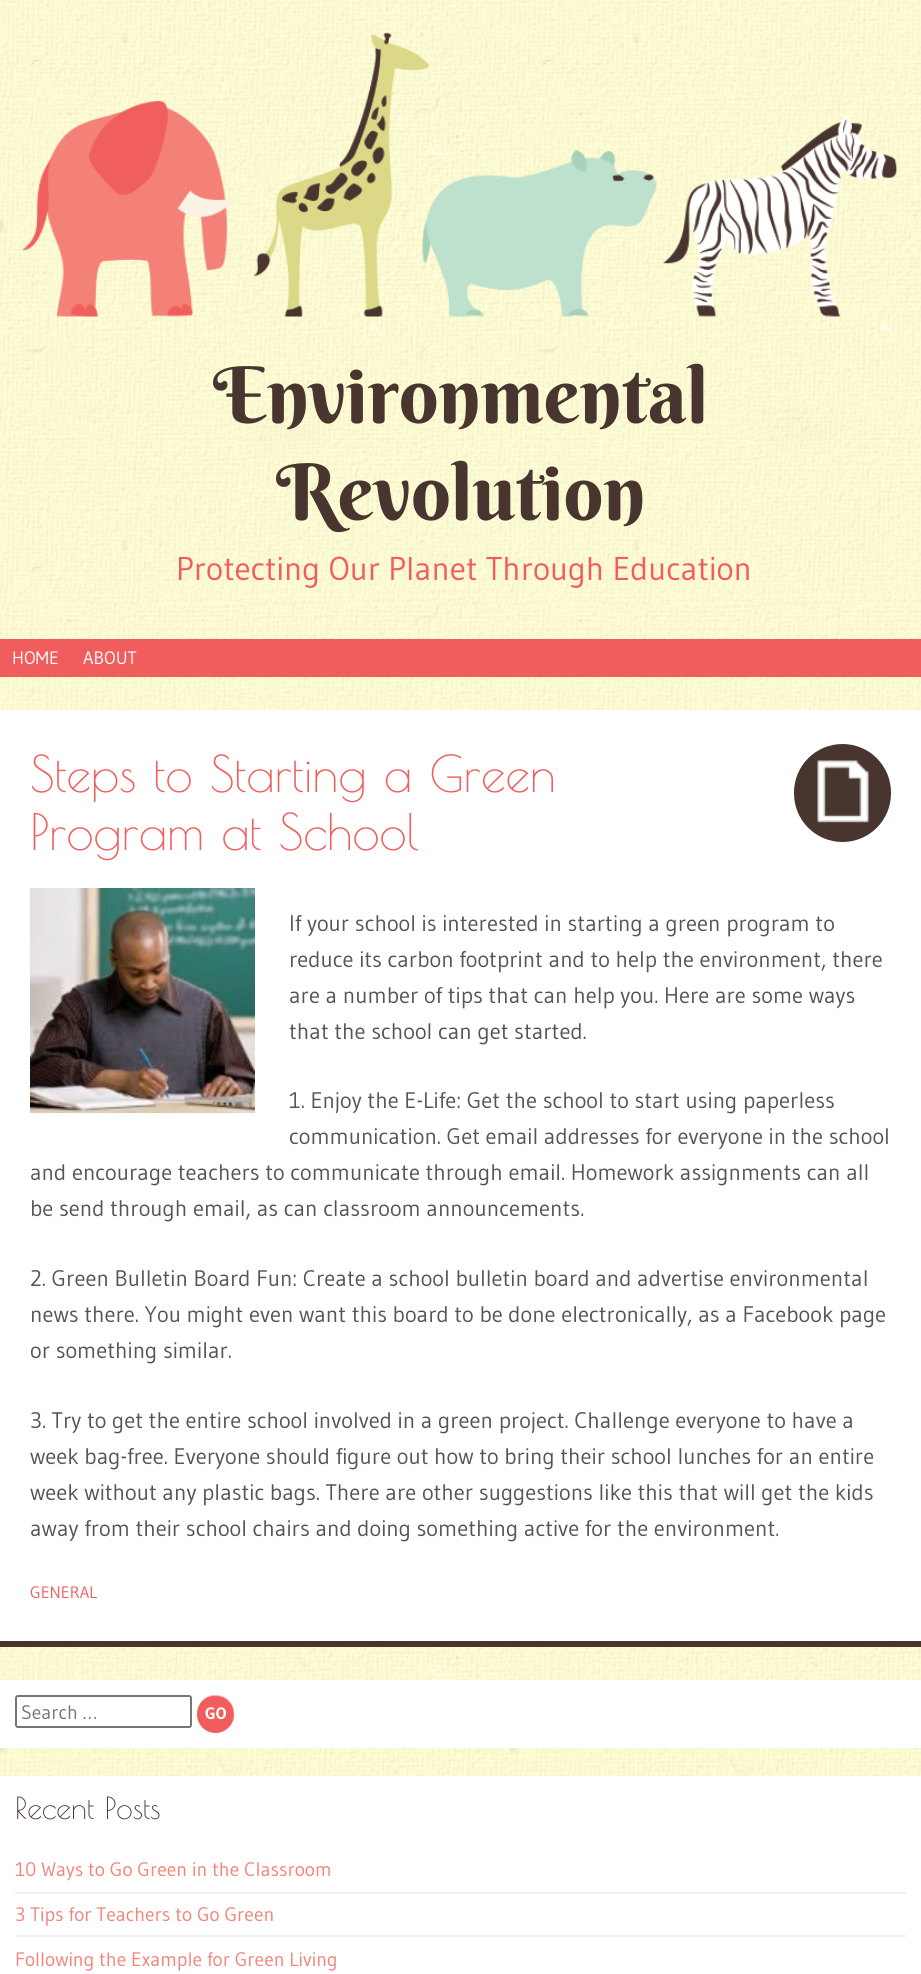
import math
import cairo

surface = cairo.ImageSurface(cairo.FORMAT_RGB24, 921, 1974)
c = cairo.Context(surface)
options = cairo.FontOptions()
options.set_hint_metrics(cairo.HINT_METRICS_OFF)
options.set_hint_style(cairo.HINT_STYLE_NONE)
c.set_font_options(options)
c.set_miter_limit(4)
def C(code):
 c.set_source_rgb(*(v / 255 for v in bytes.fromhex(code[-6:])))
def F(family, size, italic, bold):
 c.select_font_face(family, cairo.FONT_SLANT_ITALIC if italic else cairo.FONT_SLANT_NORMAL, cairo.FONT_WEIGHT_BOLD if bold else cairo.FONT_WEIGHT_NORMAL)
 c.set_font_size(size)
def T(x, y, s):
 c.move_to(x, y)
 c.show_text(s)
def R(x, y, w, h):
 c.rectangle(x, y, w, h)
 c.fill()
def Q(x, y, w, h, r):
 c.new_sub_path()
 for i, (u, v) in enumerate([(x + w - r, y + h - r), (x + r, y + h - r), (x + r, y + r), (x + w - r, y + r)]):
  c.arc(u, v, r, i * math.pi / 2, (i + 1) * math.pi / 2)
 c.close_path()
def I(path, x, y, w, h):
 c.save()
 c.set_source_surface(cairo.ImageSurface.create_from_png(path), x, y)
 c.rectangle(x, y, w, h)
 c.fill()
 c.restore()
C('ffffff')
c.paint()
I('1.png',0,0,921,1776)
I('2.png',22,32,876,285)
F('Berkshire Swash',78,0,0)
C('49352f')
T(213,423,'Environmental')
T(276,520,'Revolution')
F('Gudea',33,0,0)
C('f15d5d')
T(176,580,'Protecting Our Planet Through Education')
R(0,639,921,38)
F('Gudea',18,0,0)
C('ffffff')
T(12,664,'HOME')
T(83,664,'ABOUT')
R(0,710,921,931)
C('49352f')
R(0,1641,921,6)
F('Poiret One',49.5,0,0)
C('f15d5d')
T(30,792,'Steps to Starting a Green')
T(30,850,'Program at School')
C('49352f')
Q(794,744,97,98,48.5)
c.fill()
I('3.png',817,760,52,63)
I('4.png',30,888,225,225)
F('Gudea',22.5,0,0)
C('555555')
T(289,931,'If your school is interested in starting a green program to')
T(289,967,'reduce its carbon footprint and to help the environment, there')
T(289,1003,'are a number of tips that can help you. Here are some ways')
T(289,1039,'that the school can get started.')
T(289,1108,'1. Enjoy the E-Life: Get the school to start using paperless')
T(289,1144,'communication. Get email addresses for everyone in the school')
T(30,1180,'and encourage teachers to communicate through email. Homework assignments can all')
T(30,1216,'be send through email, as can classroom announcements.')
T(30,1286,'2. Green Bulletin Board Fun: Create a school bulletin board and advertise environmental')
T(30,1322,'news there. You might even want this board to be done electronically, as a Facebook page')
T(30,1358,'or something similar.')
T(30,1428,'3. Try to get the entire school involved in a green project. Challenge everyone to have a')
T(30,1464,'week bag-free. Everyone should figure out how to bring their school lunches for an entire')
T(30,1500,'week without any plastic bags. There are other suggestions like this that will get the kids')
T(30,1536,'away from their school chairs and doing something active for the environment.')
F('Gudea',16.5,0,0)
C('f15d5d')
T(30,1598,'GENERAL')
C('ffffff')
R(0,1680,921,68)
Q(16,1696,175,31,2)
C('767676')
c.stroke()
F('Gudea',19.5,0,0)
C('757575')
T(21,1719,'Search …')
C('f15d5d')
Q(197,1695,37,38,18.5)
c.fill()
c.set_source_rgba(1,1,1,0.5)
c.new_path()
c.move_to(215,1696)
c.curve_to(230,1696,236,1709.5,233,1720)
c.curve_to(234.5,1715.5,234.5,1710.5,232.5,1706.5)
c.curve_to(224.5,1687.5,196.5,1693,197,1714.5)
c.curve_to(197,1705.5,203,1696,215,1696)
c.close_path()
c.fill()
F('Gudea',16.5,0,1)
C('ffffff')
T(205,1719,'GO')
F('Poiret One',30,0,0)
C('49352f')
T(15,1819,'Recent Posts')
C('efefef')
R(15,1892,891,2)
F('Gudea',19.5,0,0)
C('f48278')
T(15,1876,'10 Ways to Go Green in the Classroom')
C('efefef')
R(15,1935,891,2)
C('f48278')
T(15,1921,'3 Tips for Teachers to Go Green')
T(15,1966,'Following the Example for Green Living')
surface.write_to_png('o.png')
